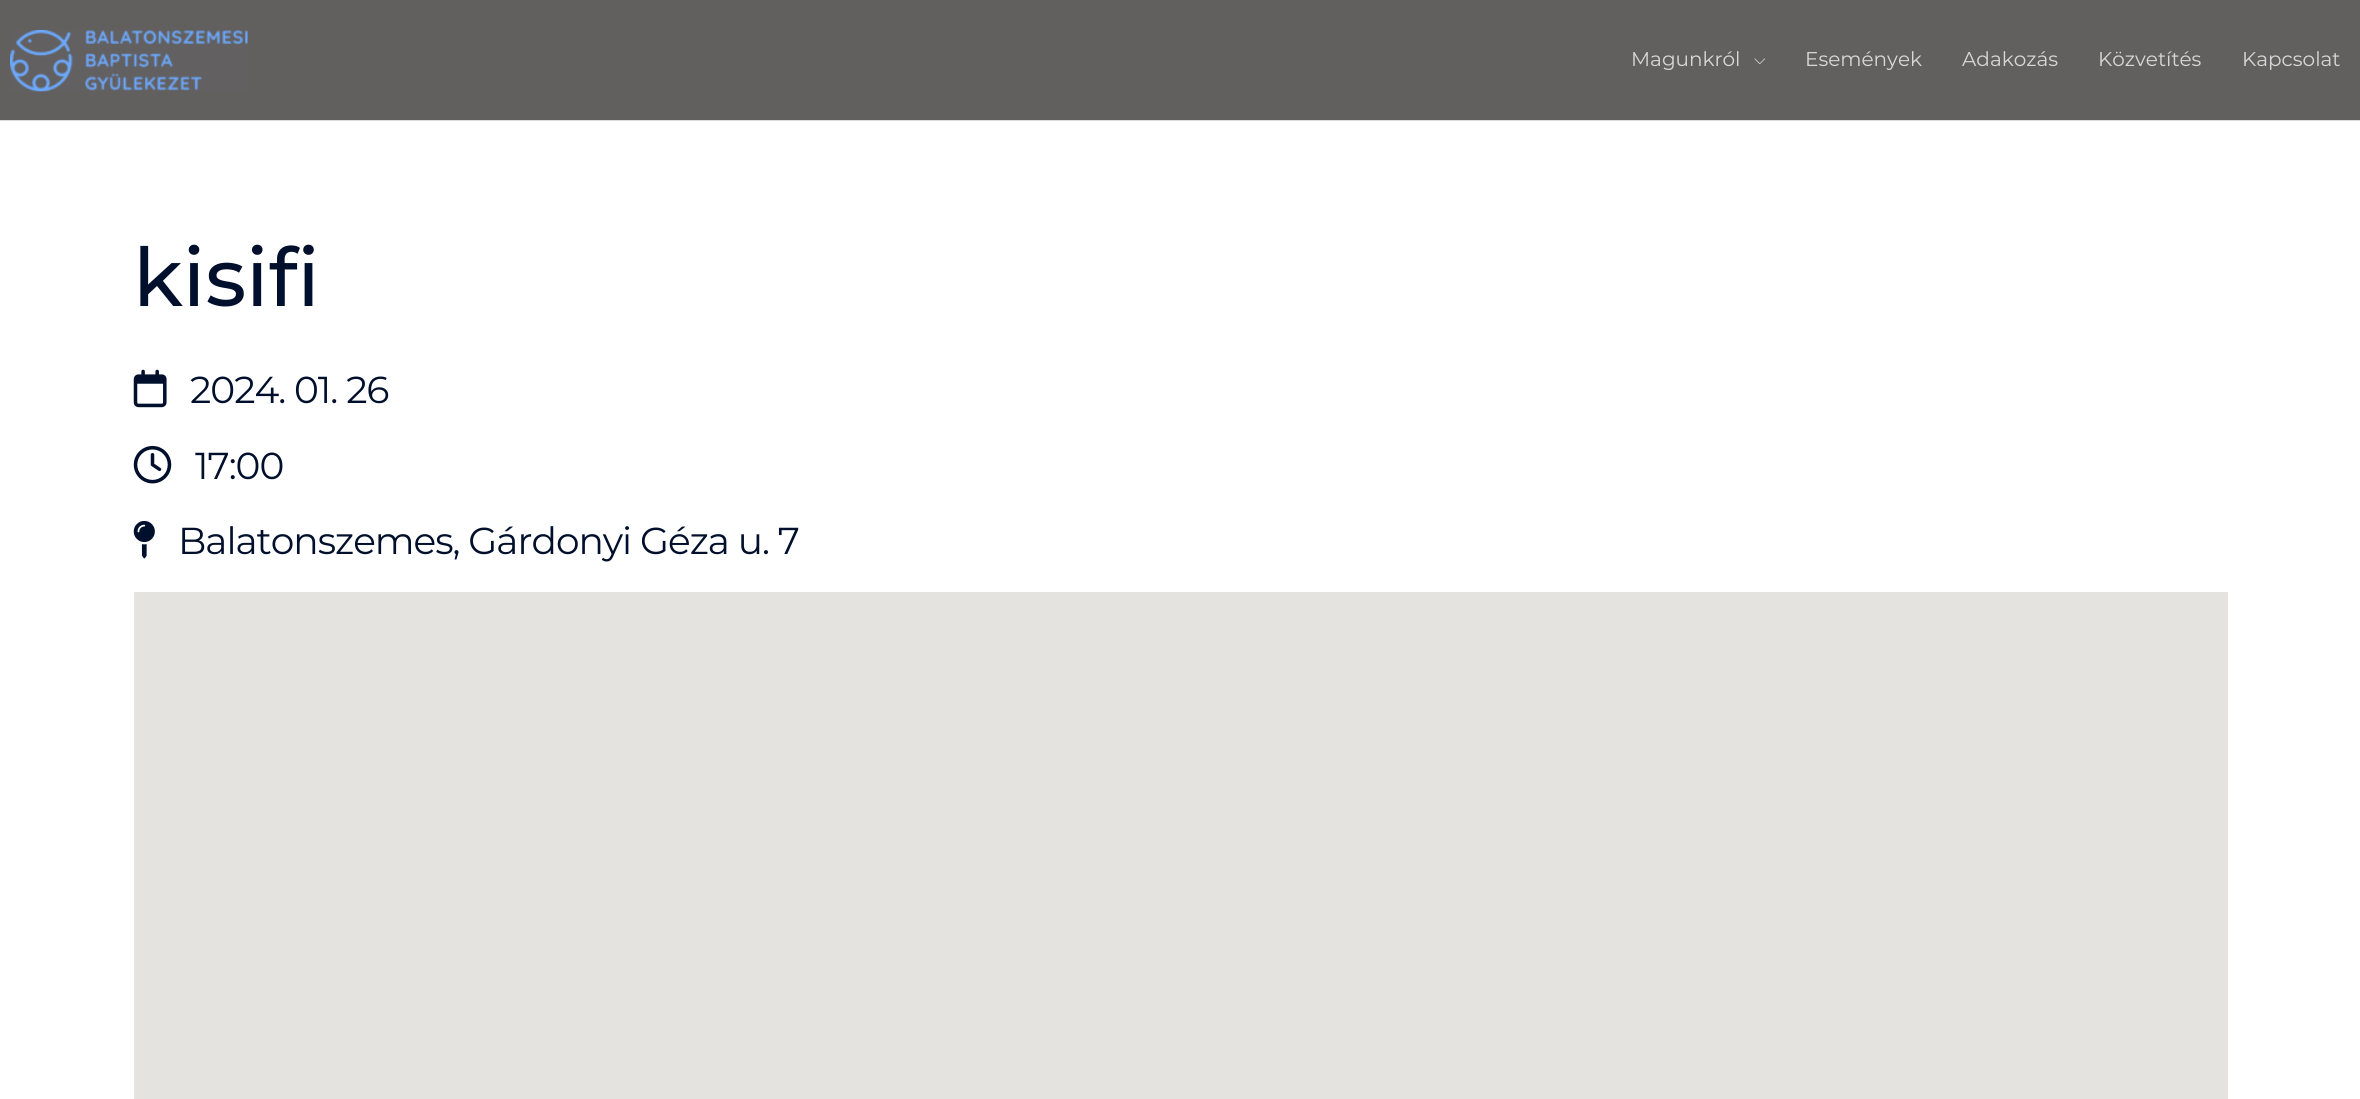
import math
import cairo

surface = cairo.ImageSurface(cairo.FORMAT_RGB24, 2360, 1099)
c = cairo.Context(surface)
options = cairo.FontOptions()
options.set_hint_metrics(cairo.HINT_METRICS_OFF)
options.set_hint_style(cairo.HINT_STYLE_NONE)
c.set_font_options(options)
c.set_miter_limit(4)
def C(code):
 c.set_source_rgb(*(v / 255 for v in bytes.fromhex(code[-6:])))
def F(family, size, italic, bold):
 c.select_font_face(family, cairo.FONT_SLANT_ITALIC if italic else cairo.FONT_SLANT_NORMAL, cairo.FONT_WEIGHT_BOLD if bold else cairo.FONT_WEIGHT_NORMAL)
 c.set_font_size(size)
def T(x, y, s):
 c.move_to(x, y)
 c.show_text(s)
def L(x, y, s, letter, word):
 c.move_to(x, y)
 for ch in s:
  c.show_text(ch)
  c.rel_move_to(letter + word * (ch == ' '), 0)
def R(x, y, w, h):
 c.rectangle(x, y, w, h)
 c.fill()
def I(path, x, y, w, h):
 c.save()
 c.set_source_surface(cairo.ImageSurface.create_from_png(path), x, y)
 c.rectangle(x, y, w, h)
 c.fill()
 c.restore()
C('ffffff')
c.paint()
C('625f5f')
R(0,0,2360,120)
C('dddddd')
R(0,120,2360,1)
I('1.png',10,30,238,62)
F('Montserrat',20,0,0)
C('d8d7d7')
T(1631,66,'Magunkról')
I('2.png',1754,58,12,7)
T(1805,66,'Események')
T(1962,66,'Adakozás')
T(2098,66,'Közvetítés')
T(2242,66,'Kapcsolat')
F('Montserrat Medium',81,0,0)
C('000f2b')
T(133,306,'kisifi')
I('3.png',133,369,34,39)
F('Montserrat',37.5,0,0)
L(190,403,'2024. 01. 26',-1,0)
I('4.png',133,445,39,39)
L(195,479,'17:00',-1,0)
I('5.png',133,520,22,39)
L(178,554,'Balatonszemes, Gárdonyi Géza u. 7',-1,0)
C('e5e3df')
R(134,592,2094,507)
surface.write_to_png('o.png')
